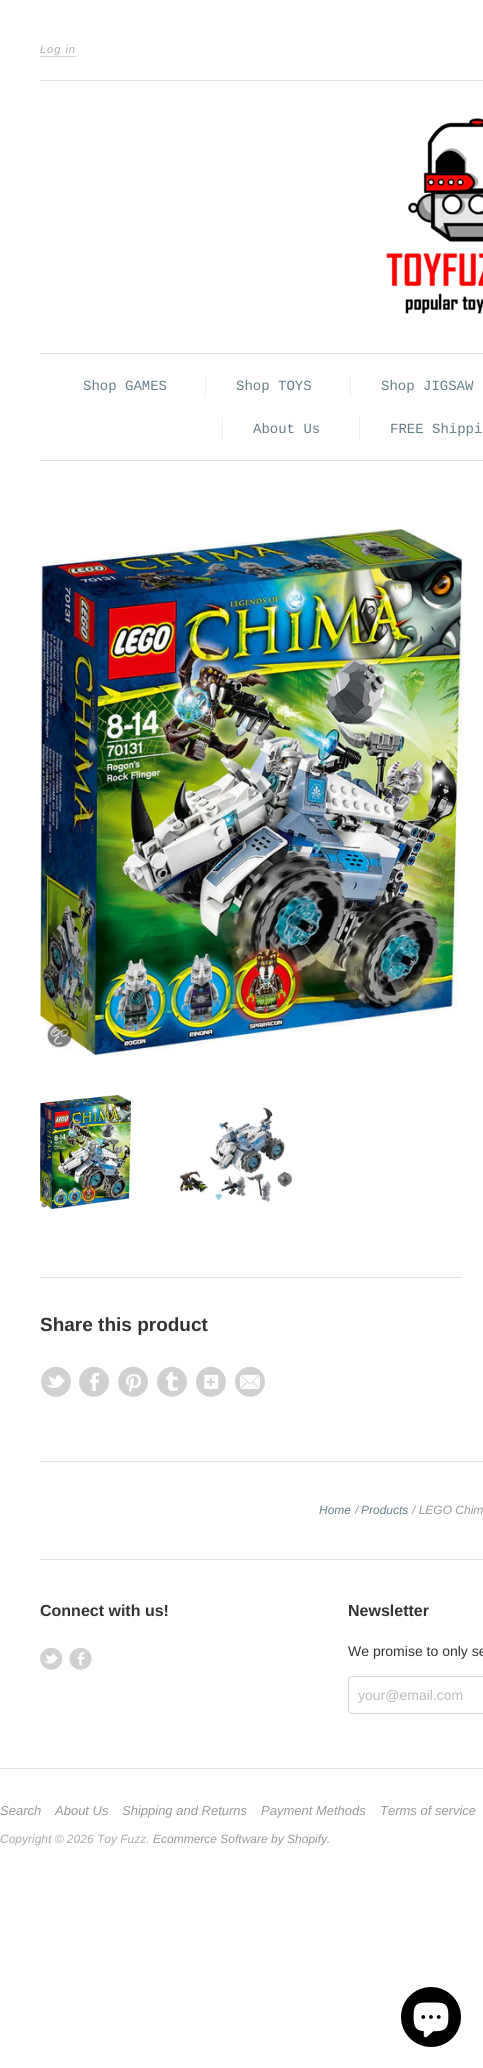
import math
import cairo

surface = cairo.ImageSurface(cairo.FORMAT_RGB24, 483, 2068)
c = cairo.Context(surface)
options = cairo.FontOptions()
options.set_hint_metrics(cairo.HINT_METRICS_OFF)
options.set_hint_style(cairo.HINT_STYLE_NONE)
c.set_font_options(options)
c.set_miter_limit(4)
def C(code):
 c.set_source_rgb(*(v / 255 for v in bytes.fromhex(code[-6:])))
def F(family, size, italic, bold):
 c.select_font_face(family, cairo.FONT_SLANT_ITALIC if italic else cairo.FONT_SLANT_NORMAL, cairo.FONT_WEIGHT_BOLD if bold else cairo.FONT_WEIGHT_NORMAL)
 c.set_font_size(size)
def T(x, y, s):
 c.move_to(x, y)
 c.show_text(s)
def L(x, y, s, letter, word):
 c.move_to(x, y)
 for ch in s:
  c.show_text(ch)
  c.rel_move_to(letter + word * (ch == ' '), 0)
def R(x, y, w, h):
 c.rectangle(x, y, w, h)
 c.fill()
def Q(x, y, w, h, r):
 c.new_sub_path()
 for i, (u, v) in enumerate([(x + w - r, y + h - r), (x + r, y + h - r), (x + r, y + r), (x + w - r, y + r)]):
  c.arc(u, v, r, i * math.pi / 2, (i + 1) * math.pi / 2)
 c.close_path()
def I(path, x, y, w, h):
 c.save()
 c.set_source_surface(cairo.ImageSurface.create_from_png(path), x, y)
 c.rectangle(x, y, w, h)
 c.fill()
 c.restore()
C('ffffff')
c.paint()
C('e2e2e2')
R(40,460,443,1)
R(40,80,443,1)
F('Liberation Sans',11,1,0)
C('aaaaaa')
L(40,53,'Log in',1,0)
C('d4d4d4')
R(40,56,36,1)
I('1.png',386,118,97,196)
C('e2e2e2')
R(40,353,443,1)
F('Liberation Mono',14,0,0)
C('677e87')
T(83,390,'Shop GAMES')
C('eeeeee')
R(205,374,1,23)
C('677e87')
T(236,390,'Shop TOYS')
C('eeeeee')
R(350,374,1,23)
C('677e87')
T(381,390,'Shop JIGSAW')
C('eeeeee')
R(222,417,1,23)
C('677e87')
T(253,433,'About Us')
C('eeeeee')
R(359,417,1,23)
C('677e87')
T(390,433,'FREE Shippi')
C('e2e2e2')
R(40,1461,443,1)
I('2.png',40,529,422,526)
I('3.png',40,1095,91,114)
I('4.png',179,1107,114,96)
R(40,1277,422,1)
F('Liberation Sans',19,0,1)
C('333333')
T(40,1331,'Share this product')
I('5.png',41,1366,30,31)
I('6.png',79,1366,30,31)
I('7.png',118,1366,30,31)
I('8.png',157,1366,30,31)
I('9.png',196,1366,30,31)
I('10.png',235,1366,30,31)
F('Liberation Sans',12,1,0)
C('677e87')
T(319,1514,'Home')
C('999999')
T(355,1514,'/')
C('677e87')
T(361,1514,'Products')
C('999999')
T(412,1514,'/ LEGO Chim')
C('e2e2e2')
R(40,1559,443,1)
F('Liberation Sans',16,0,1)
C('333333')
T(40,1616,'Connect with us!')
I('11.png',40,1647,23,23)
I('12.png',69,1647,23,23)
T(348,1616,'Newsletter')
F('Liberation Sans',14,0,0)
T(348,1656,'We promise to only se')
Q(348.5,1676.5,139,37,3.5)
C('d2d2d2')
c.set_line_width(1)
c.stroke()
C('bbbbbb')
T(358,1700,'your@email.com')
C('e2e2e2')
R(0,1768,483,1)
F('Liberation Sans',13,1,0)
C('999999')
T(0,1815,'Search')
T(55,1815,'About Us')
T(122,1815,'Shipping and Returns')
T(261,1815,'Payment Methods')
T(380,1815,'Terms of service')
F('Liberation Sans',12,1,0)
C('aaaaaa')
T(0,1843,'Copyright © 2026 Toy Fuzz.')
C('999999')
T(153,1843,'Ecommerce Software by Shopify')
C('aaaaaa')
T(327,1843,'.')
C('000000')
c.new_path()
c.arc(431,2017,30,0,2 * math.pi)
c.fill()
I('13.png',413,2002,36,36)
surface.write_to_png('o.png')
